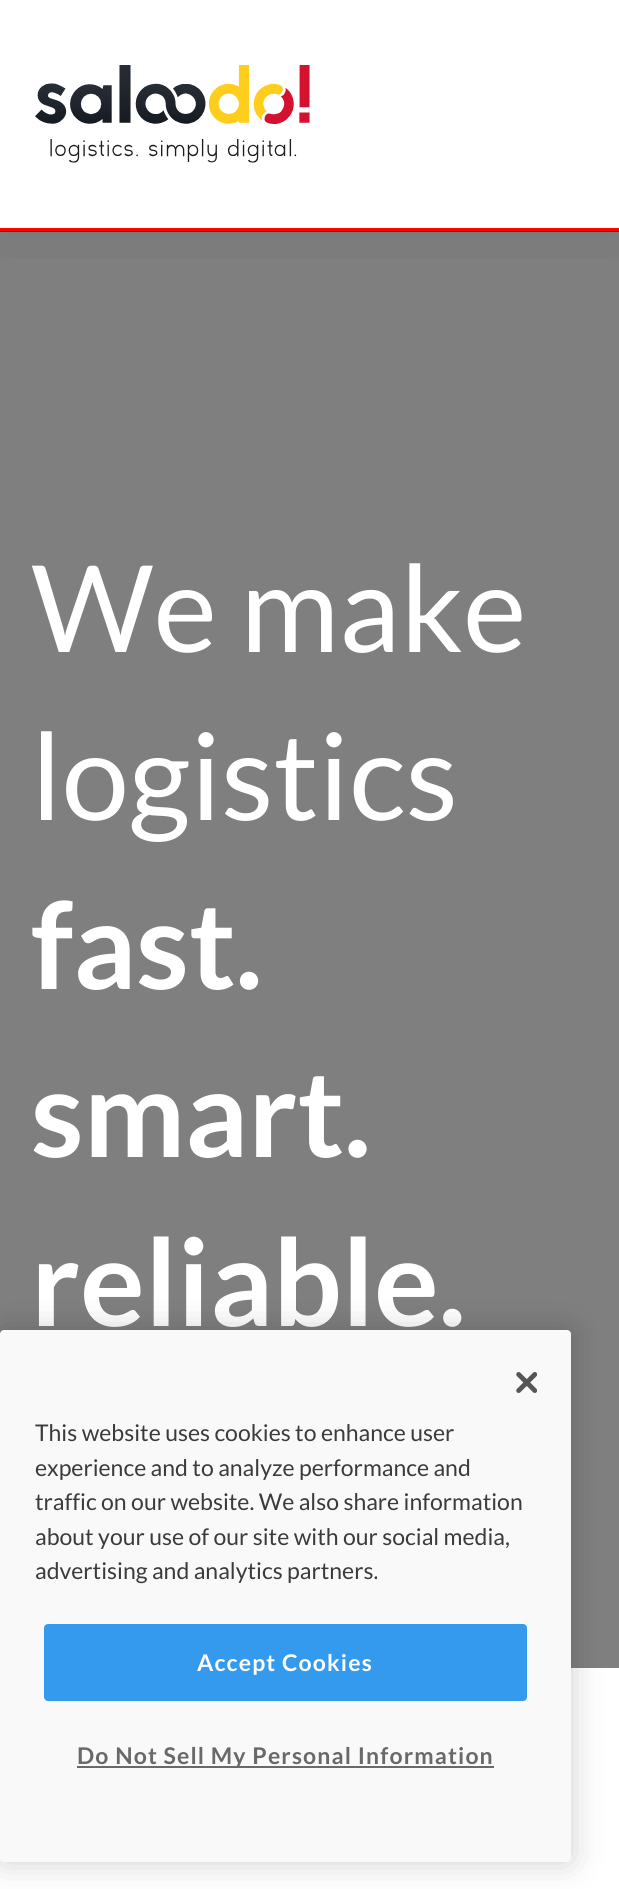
import math
import cairo

surface = cairo.ImageSurface(cairo.FORMAT_RGB24, 619, 1889)
c = cairo.Context(surface)
options = cairo.FontOptions()
options.set_hint_metrics(cairo.HINT_METRICS_OFF)
options.set_hint_style(cairo.HINT_STYLE_NONE)
c.set_font_options(options)
c.set_miter_limit(4)
def C(code):
 c.set_source_rgb(*(v / 255 for v in bytes.fromhex(code[-6:])))
def F(family, size, italic, bold):
 c.select_font_face(family, cairo.FONT_SLANT_ITALIC if italic else cairo.FONT_SLANT_NORMAL, cairo.FONT_WEIGHT_BOLD if bold else cairo.FONT_WEIGHT_NORMAL)
 c.set_font_size(size)
def T(x, y, s):
 c.move_to(x, y)
 c.show_text(s)
def L(x, y, s, letter, word):
 c.move_to(x, y)
 for ch in s:
  c.show_text(ch)
  c.rel_move_to(letter + word * (ch == ' '), 0)
def R(x, y, w, h):
 c.rectangle(x, y, w, h)
 c.fill()
def Q(x, y, w, h, r):
 c.new_sub_path()
 for i, (u, v) in enumerate([(x + w - r, y + h - r), (x + r, y + h - r), (x + r, y + r), (x + w - r, y + r)]):
  c.arc(u, v, r, i * math.pi / 2, (i + 1) * math.pi / 2)
 c.close_path()
def S(x, y, w, h, r, blur, alpha):
 c.push_group_with_content(cairo.CONTENT_ALPHA)
 c.set_operator(cairo.OPERATOR_SOURCE)
 for i in range(15, -16, -2):
  e = blur * i / 6
  if min(w, h) + 2 * e > 0:
   c.set_source_rgba(0, 0, 0, alpha * math.erfc((i - 1) / 8.5) / 2)
   Q(x - e, y - e, w + 2 * e, h + 2 * e, max(0, min(r + e + blur * .6, min(w, h) / 2 + e)))
   c.fill()
 c.mask(c.pop_group())
def I(path, x, y, w, h):
 c.save()
 c.set_source_surface(cairo.ImageSurface.create_from_png(path), x, y)
 c.rectangle(x, y, w, h)
 c.fill()
 c.restore()
C('ffffff')
c.paint()
C('7f7f7f')
R(0,232,619,1436)
c.save()
c.rectangle(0,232,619,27)
c.clip()
C('131313')
S(0,0,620,231,0,33,.1)
c.restore()
C('ff0000')
R(0,228,619,3)
C('7f1313')
R(0,231,619,1)
I('1.png',35,65,275,98)
F('Lato',120.5,0,0)
C('ffffff')
T(31,652,'We make')
T(31,820,'logistics')
F('Lato',120.5,0,1)
T(31,989,'fast.')
T(31,1157,'smart.')
T(31,1326,'reliable.')
C('000000')
S(0,1330,571,532,4,16,.2)
C('f9f9f9')
Q(0,1330,571,532,4)
c.fill()
I('2.png',516,1372,21,21)
F('Lato',23,0,0)
C('3b3b3b')
T(35,1441,'This website uses cookies to enhance user')
T(35,1476,'experience and to analyze performance and')
T(35,1510,'traffic on our website. We also share information')
T(35,1545,'about your use of our site with our social media,')
T(35,1579,'advertising and analytics partners.')
C('349aed')
Q(45,1625,481,75,3)
c.fill_preserve()
c.stroke()
F('Lato',23,0,1)
C('ffffff')
L(197,1671,'Accept Cookies',1.15,0)
C('696969')
R(77,1766,417,2)
L(77,1764,'Do Not Sell My Personal Information',1.15,0)
surface.write_to_png('o.png')
